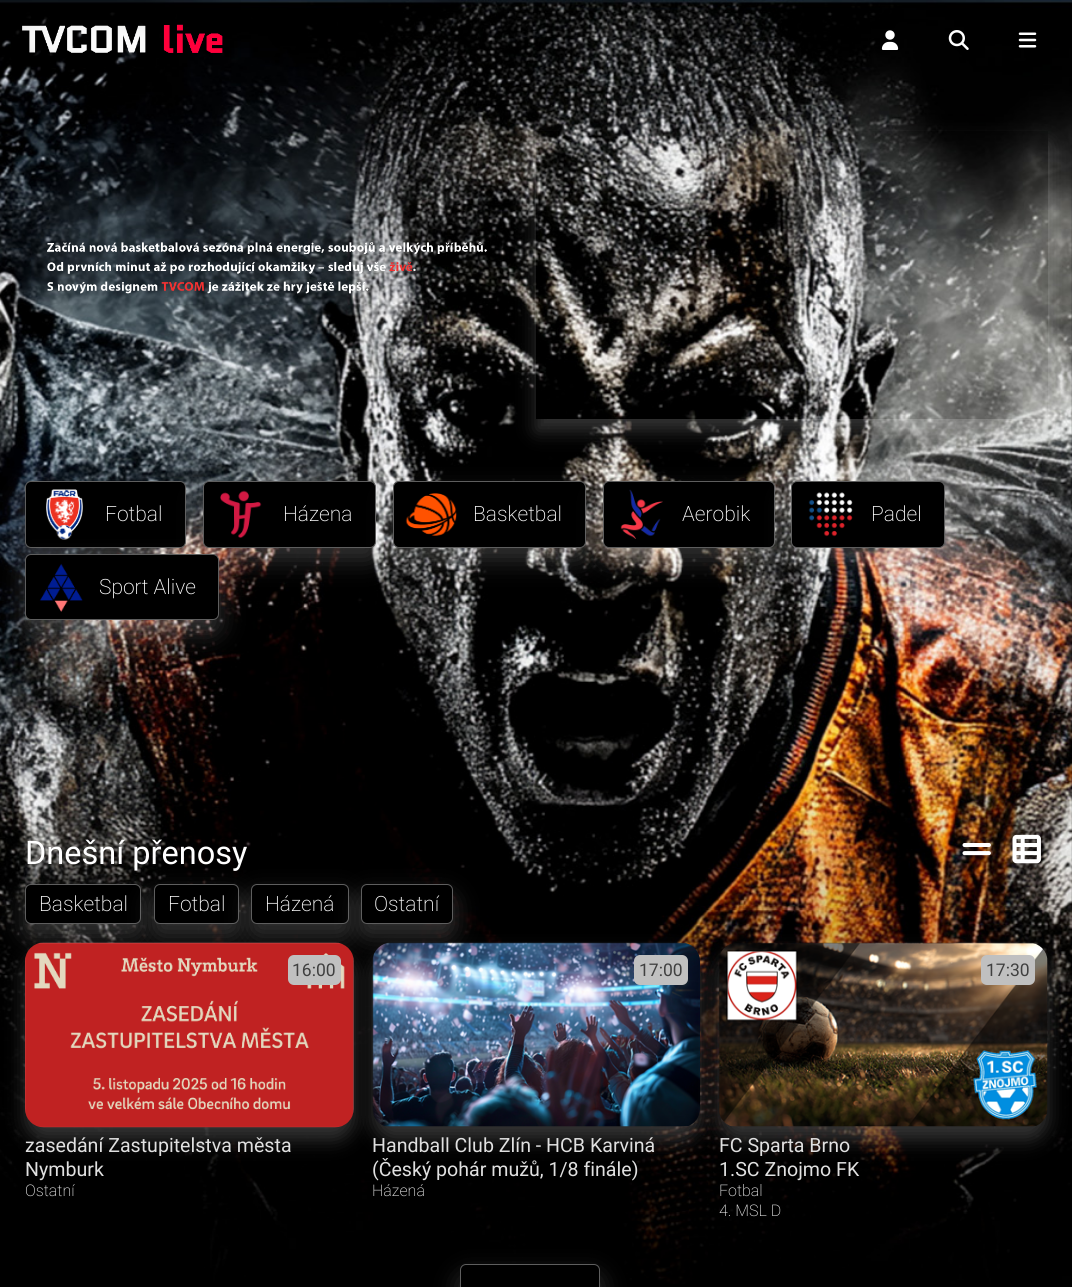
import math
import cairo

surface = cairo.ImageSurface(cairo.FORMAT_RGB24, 1072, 1287)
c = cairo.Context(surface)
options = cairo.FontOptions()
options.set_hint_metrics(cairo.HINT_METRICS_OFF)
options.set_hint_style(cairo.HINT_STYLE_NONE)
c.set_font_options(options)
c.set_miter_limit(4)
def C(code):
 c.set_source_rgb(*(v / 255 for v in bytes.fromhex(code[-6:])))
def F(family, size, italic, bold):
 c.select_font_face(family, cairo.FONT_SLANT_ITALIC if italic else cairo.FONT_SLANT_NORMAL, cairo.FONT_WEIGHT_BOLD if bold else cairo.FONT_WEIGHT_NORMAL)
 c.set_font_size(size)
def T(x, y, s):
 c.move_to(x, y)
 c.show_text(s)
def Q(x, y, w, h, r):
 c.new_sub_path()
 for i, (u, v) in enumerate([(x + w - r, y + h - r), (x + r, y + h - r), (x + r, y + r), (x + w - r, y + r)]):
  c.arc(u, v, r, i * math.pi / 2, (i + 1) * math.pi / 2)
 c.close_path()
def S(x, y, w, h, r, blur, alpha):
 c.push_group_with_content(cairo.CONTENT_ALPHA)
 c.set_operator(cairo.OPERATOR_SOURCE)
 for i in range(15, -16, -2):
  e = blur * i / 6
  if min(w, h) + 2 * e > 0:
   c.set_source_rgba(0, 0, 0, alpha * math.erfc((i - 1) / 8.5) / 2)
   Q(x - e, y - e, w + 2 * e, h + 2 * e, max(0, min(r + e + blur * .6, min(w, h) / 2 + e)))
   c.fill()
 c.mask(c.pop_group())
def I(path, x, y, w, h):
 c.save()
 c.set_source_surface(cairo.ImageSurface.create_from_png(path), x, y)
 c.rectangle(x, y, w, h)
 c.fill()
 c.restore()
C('000000')
c.paint()
I('1.png',0,0,1072,1284)
I('2.png',22,24,201,29)
I('3.png',881,30,18,20)
I('4.png',948,30,21,20)
I('5.png',1018,32,19,16)
I('6.png',47,242,440,52)
c.save()
c.set_fill_rule(cairo.FILL_RULE_EVEN_ODD)
c.new_path()
c.move_to(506,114)
c.line_to(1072,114)
c.line_to(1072,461)
c.line_to(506,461)
c.close_path()
c.move_to(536,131)
c.line_to(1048,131)
c.line_to(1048,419)
c.line_to(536,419)
c.close_path()
c.clip()
C('ffffff')
S(536,144,512,287,0,9.5,.2)
c.restore()
C('ffffff')
S(25,494,161,66,6,12.5,.2)
C('000000')
Q(25.5,481.5,160,66,5.5)
c.fill_preserve()
C('5e5e5e')
c.set_line_width(1)
c.stroke()
I('7.png',46,489,37,51)
F('Roboto ExtraLight',21,0,0)
C('ffffff')
T(105,521,'Fotbal')
C('ffffff')
S(203,494,173,66,6,12.5,.2)
C('000000')
Q(203.5,481.5,172,66,5.5)
c.fill_preserve()
C('5e5e5e')
c.stroke()
I('8.png',220,490,42,48)
C('ffffff')
T(283,521,'Házena')
C('ffffff')
S(393,494,193,66,6,12.5,.2)
C('000000')
Q(393.5,481.5,192,66,5.5)
c.fill_preserve()
C('5e5e5e')
c.stroke()
I('9.png',405,493,52,43)
C('ffffff')
T(473,521,'Basketbal')
C('ffffff')
S(603,494,172,66,6,12.5,.2)
C('000000')
Q(603.5,481.5,171,66,5.5)
c.fill_preserve()
C('5e5e5e')
c.stroke()
I('10.png',620,489,43,50)
C('ffffff')
T(682,521,'Aerobik')
C('ffffff')
S(791,494,154,66,6,12.5,.2)
C('000000')
Q(791.5,481.5,153,66,5.5)
c.fill_preserve()
C('5e5e5e')
c.stroke()
I('11.png',808,492,45,45)
C('ffffff')
T(871,521,'Padel')
C('ffffff')
S(25,566,194,67,6,12.5,.2)
C('000000')
Q(25.5,554.5,193,65,5.5)
c.fill_preserve()
C('5e5e5e')
c.stroke()
I('12.png',39,563,44,49)
C('ffffff')
T(99,594,'Sport Alive')
F('Roboto',32.5,0,0)
T(25,864,'Dnešní přenosy')
I('13.png',962,843,29,13)
I('14.png',1012,834,29,30)
C('ffffff')
S(25,896,116,40,6,12.5,.2)
C('000000')
Q(25.5,884.5,115,39,5.5)
c.fill_preserve()
C('5e5e5e')
c.stroke()
F('Roboto ExtraLight',21,0,0)
C('ffffff')
T(39,911,'Basketbal')
C('ffffff')
S(154,896,85,40,6,12.5,.2)
C('000000')
Q(154.5,884.5,84,39,5.5)
c.fill_preserve()
C('5e5e5e')
c.stroke()
C('ffffff')
T(168,911,'Fotbal')
C('ffffff')
S(251,896,98,40,6,12.5,.2)
C('000000')
Q(251.5,884.5,97,39,5.5)
c.fill_preserve()
C('5e5e5e')
c.stroke()
C('ffffff')
T(265,911,'Házená')
C('ffffff')
S(361,896,92,40,6,12.5,.2)
C('000000')
Q(361.5,884.5,91,39,5.5)
c.fill_preserve()
C('5e5e5e')
c.stroke()
C('ffffff')
T(374,911,'Ostatní')
C('ffffff')
S(25,955,329,185,19,9.5,.2)
I('15.png',25,942,329,186)
C('c0c0c0')
Q(288,955,53,30,6)
c.fill()
F('Roboto',17.5,0,0)
C('404040')
T(292,976,'16:00')
F('Roboto',19.6,0,0)
C('e0e0e0')
T(25,1152,'zasedání Zastupitelstva města')
T(25,1176,'Nymburk')
F('Roboto ExtraLight',16,0,0)
T(25,1196,'Ostatní')
C('ffffff')
S(373,955,327,185,19,9.5,.2)
I('16.png',372,942,328,185)
C('c0c0c0')
Q(634,955,54,30,6)
c.fill()
F('Roboto',17.5,0,0)
C('404040')
T(639,976,'17:00')
F('Roboto',19.6,0,0)
C('e0e0e0')
T(372,1152,'Handball Club Zlín - HCB Karviná')
T(372,1176,'(Český pohár mužů, 1/8 finále)')
F('Roboto ExtraLight',16,0,0)
T(372,1196,'Házená')
C('ffffff')
S(719,955,329,185,19,9.5,.2)
I('17.png',719,942,329,185)
C('c0c0c0')
Q(981,955,54,30,6)
c.fill()
F('Roboto',17.5,0,0)
C('404040')
T(986,976,'17:30')
F('Roboto',19.6,0,0)
C('e0e0e0')
T(719,1152,'FC Sparta Brno')
T(719,1176,'1.SC Znojmo FK')
F('Roboto ExtraLight',16,0,0)
T(719,1196,'Fotbal')
T(719,1216,'4. MSL D')
c.save()
c.set_fill_rule(cairo.FILL_RULE_EVEN_ODD)
c.new_path()
c.move_to(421,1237)
c.line_to(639,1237)
c.line_to(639,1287)
c.line_to(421,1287)
c.close_path()
c.move_to(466,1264)
c.line_to(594,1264)
c.curve_to(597.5,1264,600,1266.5,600,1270)
c.line_to(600,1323)
c.curve_to(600,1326.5,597.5,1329,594,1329)
c.line_to(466,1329)
c.curve_to(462.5,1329,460,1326.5,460,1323)
c.line_to(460,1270)
c.curve_to(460,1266.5,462.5,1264,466,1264)
c.close_path()
c.clip()
C('ffffff')
S(460,1276,140,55,6,12.5,.2)
c.restore()
Q(460.5,1264.5,139,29,5.5)
C('5e5e5e')
c.stroke()
surface.write_to_png('o.png')
